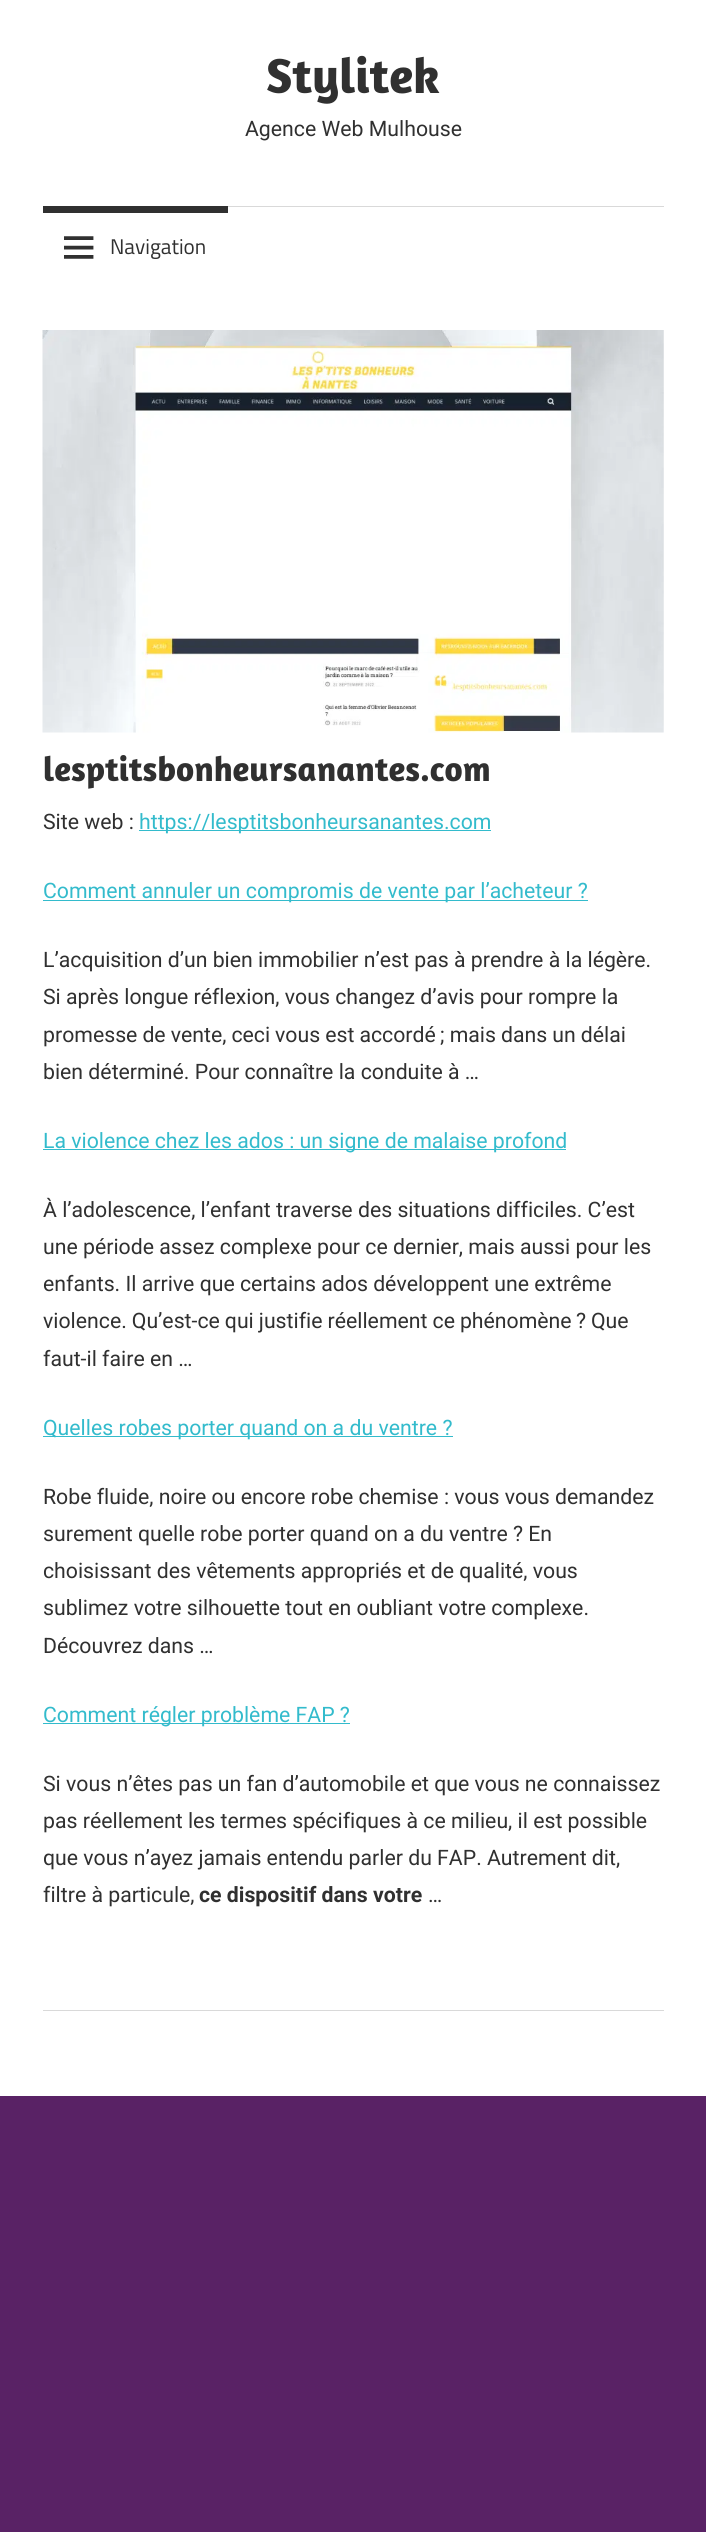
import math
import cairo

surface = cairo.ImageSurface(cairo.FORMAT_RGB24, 706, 2532)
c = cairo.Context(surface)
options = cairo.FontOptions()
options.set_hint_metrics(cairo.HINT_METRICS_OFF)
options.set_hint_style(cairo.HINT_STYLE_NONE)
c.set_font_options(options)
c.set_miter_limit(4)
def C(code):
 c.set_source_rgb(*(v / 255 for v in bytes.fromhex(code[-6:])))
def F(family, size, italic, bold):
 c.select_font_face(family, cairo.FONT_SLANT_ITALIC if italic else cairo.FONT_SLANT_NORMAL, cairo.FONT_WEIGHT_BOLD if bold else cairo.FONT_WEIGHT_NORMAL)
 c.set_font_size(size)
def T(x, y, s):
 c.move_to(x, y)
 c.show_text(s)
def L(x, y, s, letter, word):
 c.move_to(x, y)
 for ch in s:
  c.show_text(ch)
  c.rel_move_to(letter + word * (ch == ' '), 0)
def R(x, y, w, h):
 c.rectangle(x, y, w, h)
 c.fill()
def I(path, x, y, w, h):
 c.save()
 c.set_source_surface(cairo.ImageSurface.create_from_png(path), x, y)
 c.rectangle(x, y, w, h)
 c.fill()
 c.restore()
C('592265')
c.paint()
C('ffffff')
R(0,0,706,2096)
F('Amaranth',50,0,1)
C('303030')
T(266,93,'Stylitek')
F('Roboto',21.25,0,0)
T(245,136,'Agence Web Mulhouse')
C('d9d9d9')
R(228,206,436,1)
C('303030')
R(43,206,185,7)
I('1.png',64,236,30,23)
F('Titillium Web',21.25,0,0)
T(110,254,'Navigation')
I('2.png',42,330,622,403)
F('Amaranth',35,0,1)
T(43,781,'lesptitsbonheursanantes.com')
F('Roboto',21.25,0,0)
T(43,829,'Site web :')
C('33bbcc')
R(139,830,352,1)
T(139,829,'https://lesptitsbonheursanantes.com')
R(43,900,545,1)
T(43,898,'Comment annuler un compromis de vente par l’acheteur ?')
C('303030')
T(43,967,'L’acquisition d’un bien immobilier n’est pas à prendre à la légère.')
T(43,1004,'Si après longue réflexion, vous changez d’avis pour rompre la')
L(43,1042,'promesse de vente, ceci vous est accordé ; mais dans un délai',0,-.25)
T(43,1079,'bien déterminé. Pour connaître la conduite à …')
C('33bbcc')
R(43,1149,523,1)
T(43,1148,'La violence chez les ados : un signe de malaise profond')
C('303030')
T(43,1217,'À l’adolescence, l’enfant traverse des situations difficiles. C’est')
T(43,1254,'une période assez complexe pour ce dernier, mais aussi pour les')
T(43,1291,'enfants. Il arrive que certains ados développent une extrême')
L(43,1328,'violence. Qu’est-ce qui justifie réellement ce phénomène ? Que',0,-.25)
T(43,1366,'faut-il faire en …')
C('33bbcc')
R(43,1436,410,1)
T(43,1435,'Quelles robes porter quand on a du ventre ?')
C('303030')
T(43,1504,'Robe fluide, noire ou encore robe chemise : vous vous demandez')
T(43,1541,'surement quelle robe porter quand on a du ventre ? En')
T(43,1578,'choisissant des vêtements appropriés et de qualité, vous')
T(43,1615,'sublimez votre silhouette tout en oubliant votre complexe.')
T(43,1653,'Découvrez dans …')
C('33bbcc')
R(43,1723,307,1)
T(43,1722,'Comment régler problème FAP ?')
C('303030')
T(43,1791,'Si vous n’êtes pas un fan d’automobile et que vous ne connaissez')
T(43,1828,'pas réellement les termes spécifiques à ce milieu, il est possible')
T(43,1865,'que vous n’ayez jamais entendu parler du FAP. Autrement dit,')
T(43,1902,'filtre à particule,')
F('Roboto',21.25,0,1)
T(199,1902,'ce dispositif dans votre')
F('Roboto',21.25,0,0)
T(428,1902,'…')
C('d9d9d9')
R(43,2010,621,1)
surface.write_to_png('o.png')
